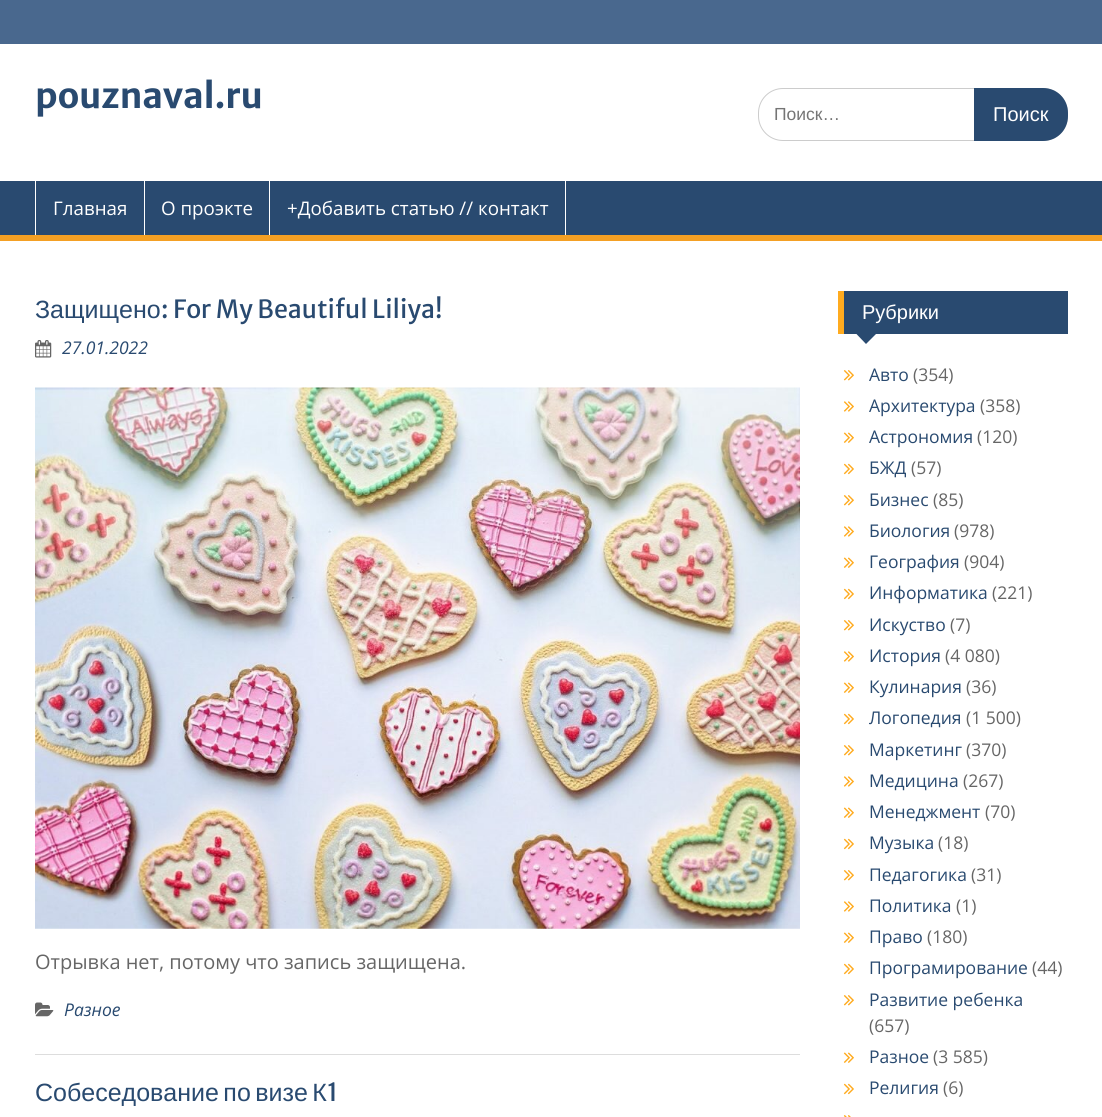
import math
import cairo

surface = cairo.ImageSurface(cairo.FORMAT_RGB24, 1102, 1117)
c = cairo.Context(surface)
options = cairo.FontOptions()
options.set_hint_metrics(cairo.HINT_METRICS_OFF)
options.set_hint_style(cairo.HINT_STYLE_NONE)
c.set_font_options(options)
c.set_miter_limit(4)
def C(code):
 c.set_source_rgb(*(v / 255 for v in bytes.fromhex(code[-6:])))
def F(family, size, italic, bold):
 c.select_font_face(family, cairo.FONT_SLANT_ITALIC if italic else cairo.FONT_SLANT_NORMAL, cairo.FONT_WEIGHT_BOLD if bold else cairo.FONT_WEIGHT_NORMAL)
 c.set_font_size(size)
def T(x, y, s):
 c.move_to(x, y)
 c.show_text(s)
def L(x, y, s, letter, word):
 c.move_to(x, y)
 for ch in s:
  c.show_text(ch)
  c.rel_move_to(letter + word * (ch == ' '), 0)
def R(x, y, w, h):
 c.rectangle(x, y, w, h)
 c.fill()
def Q(x, y, w, h, r):
 c.new_sub_path()
 for i, (u, v) in enumerate([(x + w - r, y + h - r), (x + r, y + h - r), (x + r, y + r), (x + w - r, y + r)]):
  c.arc(u, v, r, i * math.pi / 2, (i + 1) * math.pi / 2)
 c.close_path()
def I(path, x, y, w, h):
 c.save()
 c.set_source_surface(cairo.ImageSurface.create_from_png(path), x, y)
 c.rectangle(x, y, w, h)
 c.fill()
 c.restore()
C('ffffff')
c.paint()
C('49688e')
R(0,0,1102,44)
F('Merriweather Sans',35,0,1)
C('294a70')
T(35,108,'pouznaval.ru')
Q(758.5,88.5,309,52,24.5)
C('cccccc')
c.set_line_width(1)
c.stroke()
F('Liberation Sans',17.5,0,0)
C('757575')
T(774,120,'Поиск…')
C('294a70')
c.new_path()
c.move_to(974,88)
c.line_to(1043,88)
c.curve_to(1057,88,1068,99,1068,113)
c.line_to(1068,116)
c.curve_to(1068,130,1057,141,1043,141)
c.line_to(974,141)
c.close_path()
c.fill()
F('Liberation Sans',20,0,0)
C('ffffff')
T(993,121,'Поиск')
C('294a70')
R(0,181,1102,54)
C('f4a024')
R(0,235,1102,6)
C('ffffff')
R(144,181,1,54)
R(35,181,1,54)
F('Open Sans',18.75,0,0)
T(53,215,'Главная')
R(269,181,1,54)
T(161,215,'О проэкте')
R(565,181,1,54)
T(287,215,'+Добавить статью // контакт')
C('dddddd')
R(35,1054,765,1)
F('Liberation Sans',25,0,0)
C('294a70')
T(35,318,'Защищено')
F('Merriweather Sans',25,0,0)
T(161,318,': For My Beautiful Liliya!')
I('1.png',35,340,17,18)
F('Open Sans',17.5,1,0)
T(62,354,'27.01.2022')
I('2.png',35,387,765,542)
F('Open Sans',20,0,0)
C('666666')
T(35,969,'Отрывка нет, потому что запись защищена.')
I('3.png',35,1002,19,15)
F('Open Sans',17.5,1,0)
C('294a70')
T(64,1016,'Разное')
F('Liberation Sans',25,0,0)
L(35,1101,'Собеседование по визе К',0,-2.5)
F('Merriweather Sans',25,0,0)
T(327,1101,'1')
R(844,291,224,43)
C('ffab1f')
R(838,291,6,43)
F('Liberation Sans',20,0,0)
C('ffffff')
T(862,319,'Рубрики')
C('294a70')
c.new_path()
c.move_to(855,332.5)
c.line_to(877.5,332.5)
c.line_to(866,344)
c.close_path()
c.fill()
I('4.png',843,370,11,11)
F('Open Sans',17.5,0,0)
T(869,381,'Авто')
C('666666')
T(913,381,'(354)')
I('5.png',843,401,11,11)
C('294a70')
T(869,412,'Архитектура')
C('666666')
T(980,412,'(358)')
I('6.png',843,432,11,11)
C('294a70')
T(869,443,'Астрономия')
C('666666')
T(977,443,'(120)')
I('7.png',843,463,11,12)
C('294a70')
T(869,474,'БЖД')
C('666666')
T(911,474,'(57)')
I('4.png',843,495,11,11)
C('294a70')
T(869,506,'Бизнес')
C('666666')
T(933,506,'(85)')
I('5.png',843,526,11,11)
C('294a70')
T(869,537,'Биология')
C('666666')
T(954,537,'(978)')
I('6.png',843,557,11,11)
C('294a70')
T(869,568,'География')
C('666666')
T(964,568,'(904)')
I('7.png',843,588,11,12)
C('294a70')
T(869,599,'Информатика')
C('666666')
T(992,599,'(221)')
I('4.png',843,620,11,11)
C('294a70')
T(869,631,'Искуство')
C('666666')
T(950,631,'(7)')
I('5.png',843,651,11,11)
C('294a70')
T(869,662,'История')
C('666666')
T(945,662,'(4 080)')
I('6.png',843,682,11,11)
C('294a70')
T(869,693,'Кулинария')
C('666666')
T(966,693,'(36)')
I('7.png',843,713,11,12)
C('294a70')
T(869,724,'Логопедия')
C('666666')
T(966,724,'(1 500)')
I('4.png',843,745,11,11)
C('294a70')
T(869,756,'Маркетинг')
C('666666')
T(966,756,'(370)')
I('5.png',843,776,11,11)
C('294a70')
T(869,787,'Медицина')
C('666666')
T(963,787,'(267)')
I('6.png',843,807,11,11)
C('294a70')
T(869,818,'Менеджмент')
C('666666')
T(985,818,'(70)')
I('7.png',843,838,11,12)
C('294a70')
T(869,849,'Музыка')
C('666666')
T(938,849,'(18)')
I('4.png',843,870,11,11)
C('294a70')
T(869,881,'Педагогика')
C('666666')
T(971,881,'(31)')
I('5.png',843,901,11,11)
C('294a70')
T(869,912,'Политика')
C('666666')
T(956,912,'(1)')
I('6.png',843,932,11,11)
C('294a70')
T(869,943,'Право')
C('666666')
T(927,943,'(180)')
I('7.png',843,963,11,12)
C('294a70')
T(869,974,'Програмирование')
C('666666')
T(1032,974,'(44)')
I('4.png',843,995,11,11)
C('294a70')
T(869,1006,'Развитие ребенка')
C('666666')
T(869,1032,'(657)')
I('6.png',843,1052,11,11)
C('294a70')
T(869,1063,'Разное')
C('666666')
T(933,1063,'(3 585)')
I('7.png',843,1083,11,12)
C('294a70')
T(869,1094,'Религия')
C('666666')
T(943,1094,'(6)')
I('8.png',843,1115,8,2)
surface.write_to_png('o.png')
